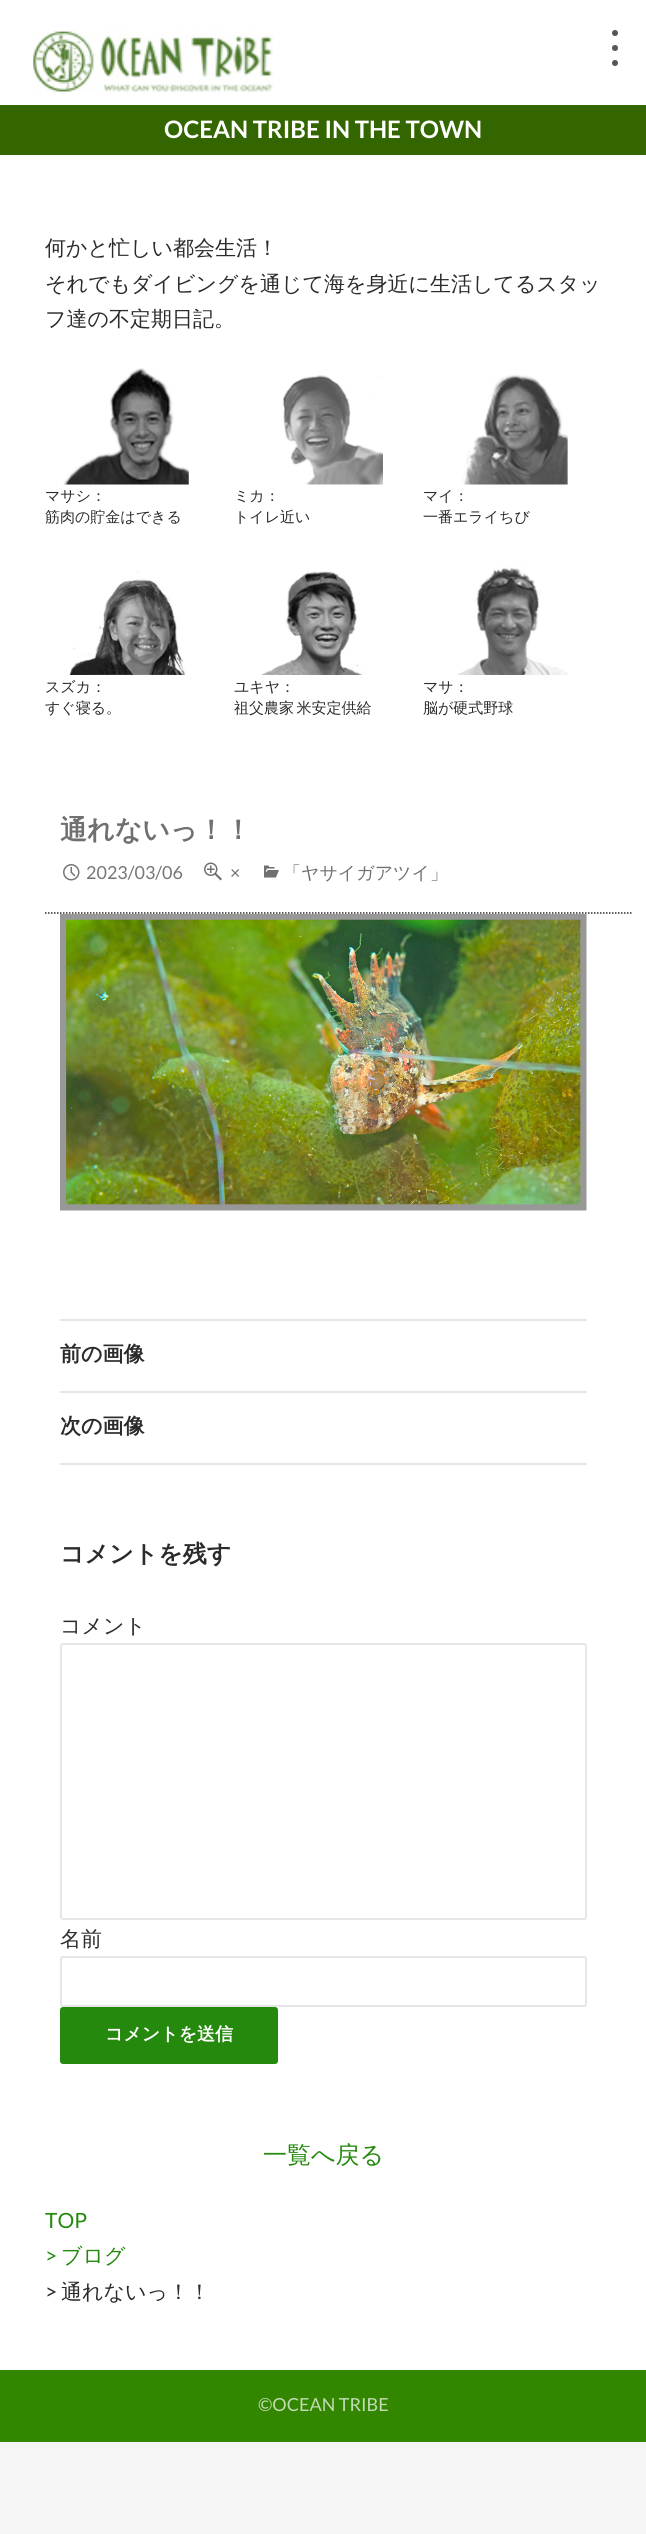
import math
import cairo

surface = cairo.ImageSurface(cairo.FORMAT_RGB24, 646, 2534)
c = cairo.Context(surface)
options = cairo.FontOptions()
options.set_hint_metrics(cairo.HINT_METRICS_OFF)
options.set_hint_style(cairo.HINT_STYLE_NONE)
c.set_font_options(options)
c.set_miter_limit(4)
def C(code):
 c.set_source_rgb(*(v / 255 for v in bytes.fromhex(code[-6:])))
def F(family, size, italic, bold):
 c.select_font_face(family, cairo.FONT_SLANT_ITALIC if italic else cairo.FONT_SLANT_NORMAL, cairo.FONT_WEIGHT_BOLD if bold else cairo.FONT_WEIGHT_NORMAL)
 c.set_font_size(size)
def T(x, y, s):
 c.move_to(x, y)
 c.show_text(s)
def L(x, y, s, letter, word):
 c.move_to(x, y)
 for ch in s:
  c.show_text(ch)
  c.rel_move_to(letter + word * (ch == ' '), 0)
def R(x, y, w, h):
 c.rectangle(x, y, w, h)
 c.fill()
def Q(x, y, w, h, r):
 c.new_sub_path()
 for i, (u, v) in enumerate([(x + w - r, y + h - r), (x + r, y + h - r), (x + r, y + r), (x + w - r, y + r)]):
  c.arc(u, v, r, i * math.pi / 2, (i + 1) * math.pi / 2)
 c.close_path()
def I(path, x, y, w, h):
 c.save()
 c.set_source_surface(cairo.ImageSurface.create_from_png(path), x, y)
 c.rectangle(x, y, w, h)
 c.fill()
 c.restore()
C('f5f5f5')
c.paint()
C('ffffff')
R(0,0,646,2370)
I('1.png',33,30,240,63)
C('555555')
c.arc(615,33,3,0,2 * math.pi)
c.fill()
c.arc(615,48,3,0,2 * math.pi)
c.fill()
c.arc(615,63,3,0,2 * math.pi)
c.fill()
C('336600')
R(0,105,646,50)
F('Lato',24,0,1)
C('ffffff')
T(164,138,'OCEAN TRIBE IN THE TOWN')
F('WenQuanYi Zen Hei Medium',21,0,0)
C('2b2b2b')
T(45,255,'何かと忙しい都会生活！')
T(45,291,'それでもダイビングを通じて海を身近に生活してるスタッ')
T(45,326,'フ達の不定期日記。')
I('2.png',63,368,126,117)
F('WenQuanYi Zen Hei Medium',15,0,0)
T(45,501,'マサシ：')
T(45,522,'筋肉の貯金はできる')
I('3.png',282,375,101,110)
T(234,501,'ミカ：')
T(234,522,'トイレ近い')
I('4.png',462,374,106,111)
T(423,501,'マイ：')
T(423,522,'一番エライちび')
I('5.png',69,570,117,105)
T(45,692,'スズカ：')
T(45,713,'すぐ寝る。')
I('6.png',261,571,105,104)
T(234,692,'ユキヤ：')
L(234,713,'祖父農家 米安定供給',0,-2)
I('7.png',457,559,112,116)
T(423,692,'マサ：')
T(423,713,'脳が硬式野球')
c.new_path()
c.move_to(45,913)
c.line_to(631.5,913)
c.set_line_width(1.5)
c.set_dash([1.5,1.5])
c.stroke()
F('WenQuanYi Zen Hei',27,0,1)
C('707070')
T(60,839,'通れないっ！！')
I('8.png',63,864,17,17)
F('Lato',18,0,0)
C('767676')
T(86,879,'2023/03/06')
I('9.png',204,862,18,19)
C('707070')
T(230,879,'×')
I('10.png',264,865,15,13)
F('WenQuanYi Zen Hei Medium',18,0,0)
T(283,879,'「ヤサイガアツイ」')
I('11.png',60,914,527,297)
C('e6e6e6')
R(60,1319,527,2)
R(60,1391,527,2)
F('WenQuanYi Zen Hei',21,0,1)
C('2b2b2b')
T(60,1361,'前の画像')
C('e6e6e6')
R(60,1463,527,2)
C('2b2b2b')
T(60,1433,'次の画像')
F('WenQuanYi Zen Hei',24,0,1)
T(60,1562,'コメントを残す')
F('WenQuanYi Zen Hei Medium',21,0,0)
T(60,1633,'コメント')
Q(61,1644,525,275,2)
C('e6e6e6')
c.set_line_width(2)
c.set_dash([])
c.stroke()
C('2b2b2b')
T(60,1946,'名前')
Q(61,1957,525,49,2)
C('e6e6e6')
c.stroke()
C('24890d')
Q(60,2007,218,57,3)
c.fill()
F('WenQuanYi Zen Hei',18,0,1)
C('ffffff')
T(105,2040,'コメントを送信')
F('WenQuanYi Zen Hei Medium',24,0,0)
C('24890d')
T(263,2163,'一覧へ戻る')
F('Lato',21,0,0)
T(45,2228,'TOP')
T(45,2263,'>')
F('WenQuanYi Zen Hei Medium',21,0,0)
T(61,2263,'ブログ')
F('Lato',21,0,0)
C('2b2b2b')
T(45,2299,'>')
F('WenQuanYi Zen Hei Medium',21,0,0)
T(61,2299,'通れないっ！！')
C('338600')
R(0,2370,646,72)
F('Lato',18,0,0)
C('c2dbb3')
T(258,2411,'©OCEAN TRIBE')
surface.write_to_png('o.png')
